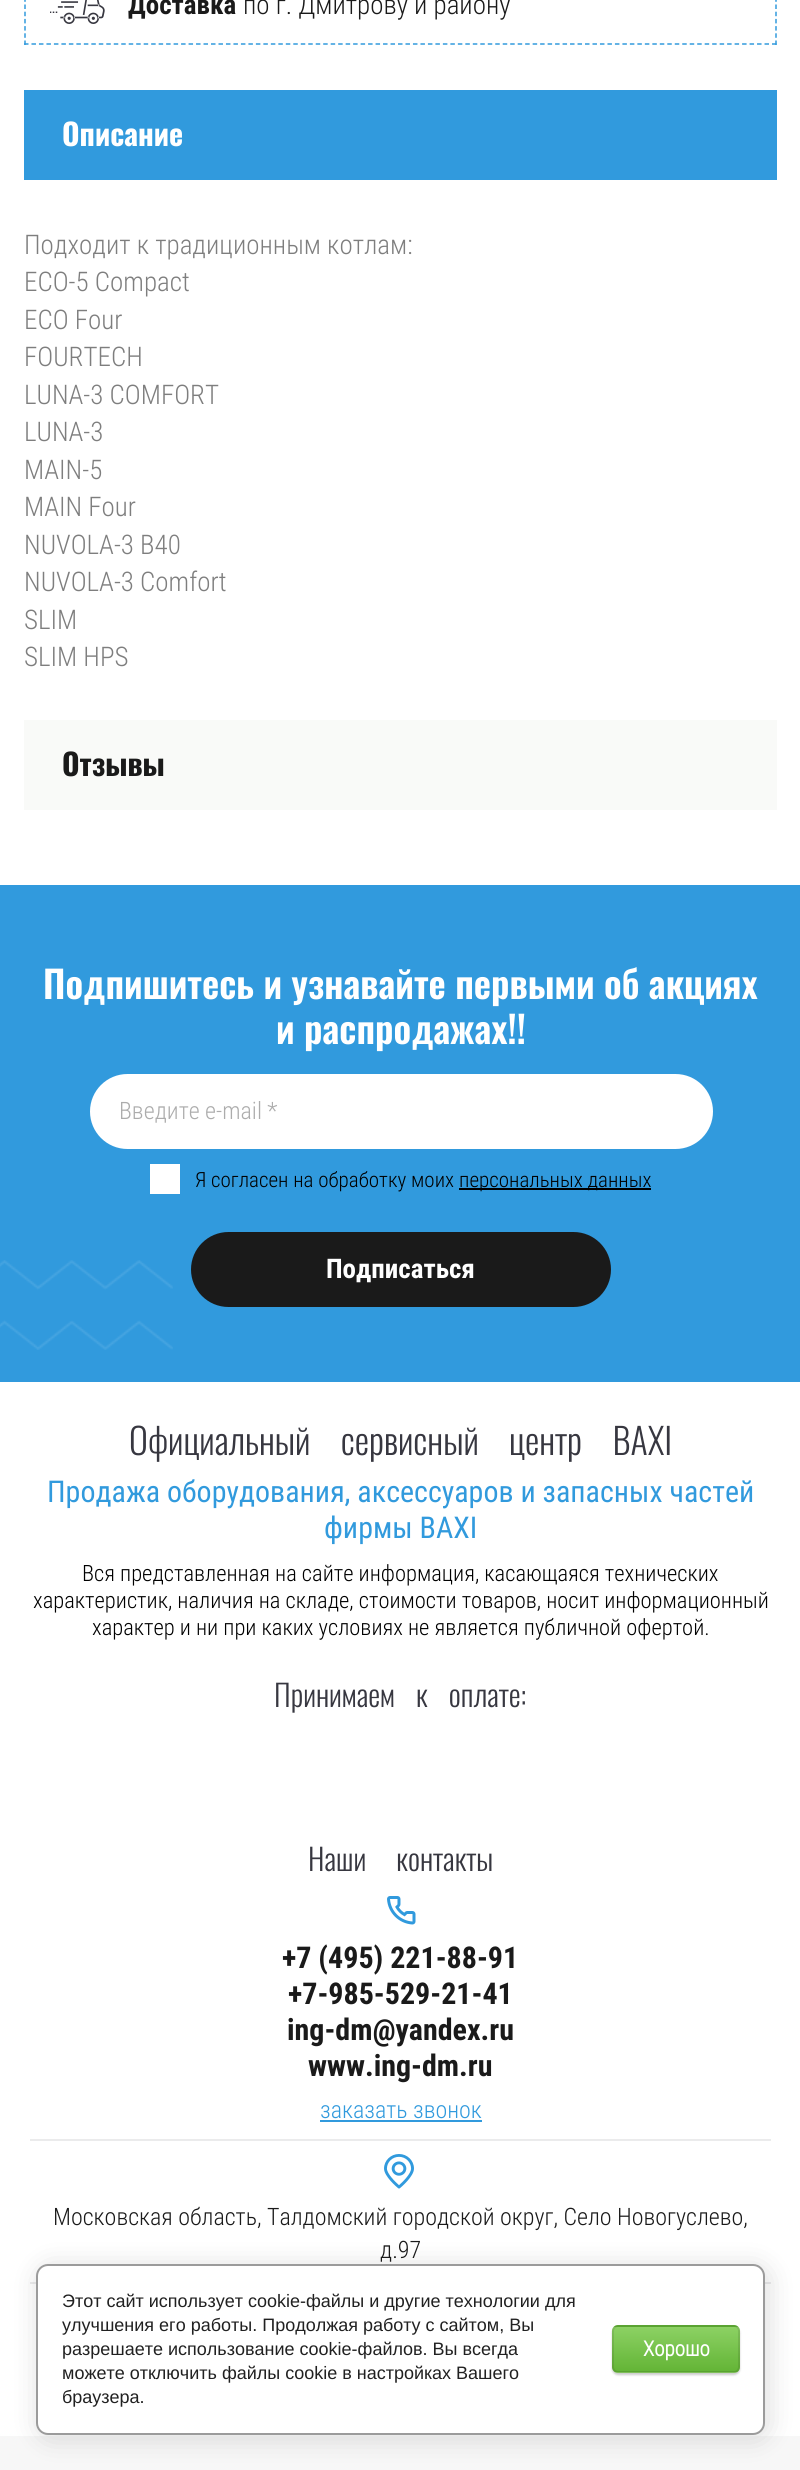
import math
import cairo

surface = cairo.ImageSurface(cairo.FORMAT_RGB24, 800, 2470)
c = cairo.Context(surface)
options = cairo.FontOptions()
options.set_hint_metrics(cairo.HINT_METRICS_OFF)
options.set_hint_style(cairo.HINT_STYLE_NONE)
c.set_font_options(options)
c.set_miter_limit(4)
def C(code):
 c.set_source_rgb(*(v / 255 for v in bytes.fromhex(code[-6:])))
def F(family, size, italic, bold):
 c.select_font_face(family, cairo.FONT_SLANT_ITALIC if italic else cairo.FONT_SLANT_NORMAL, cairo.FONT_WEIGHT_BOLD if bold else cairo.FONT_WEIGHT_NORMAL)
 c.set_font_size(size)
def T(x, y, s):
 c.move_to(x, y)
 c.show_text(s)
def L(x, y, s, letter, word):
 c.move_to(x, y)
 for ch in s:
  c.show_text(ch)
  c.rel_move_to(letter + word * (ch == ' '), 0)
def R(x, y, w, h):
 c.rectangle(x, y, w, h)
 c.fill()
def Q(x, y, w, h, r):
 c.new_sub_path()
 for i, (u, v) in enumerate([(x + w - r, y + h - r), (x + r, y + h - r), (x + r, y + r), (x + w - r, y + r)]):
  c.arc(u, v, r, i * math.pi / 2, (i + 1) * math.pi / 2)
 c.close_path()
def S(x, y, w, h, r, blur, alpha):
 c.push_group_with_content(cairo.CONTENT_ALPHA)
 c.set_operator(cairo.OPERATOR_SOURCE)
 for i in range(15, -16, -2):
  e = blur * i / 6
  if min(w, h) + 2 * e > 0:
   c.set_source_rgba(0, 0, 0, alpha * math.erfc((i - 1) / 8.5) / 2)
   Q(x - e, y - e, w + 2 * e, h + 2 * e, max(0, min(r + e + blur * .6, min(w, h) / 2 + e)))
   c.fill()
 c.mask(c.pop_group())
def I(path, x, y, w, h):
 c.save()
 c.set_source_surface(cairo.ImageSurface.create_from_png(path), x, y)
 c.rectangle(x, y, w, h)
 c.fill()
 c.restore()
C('ffffff')
c.paint()
c.new_path()
c.move_to(776,-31.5)
c.line_to(776,45)
C('319add')
c.set_line_width(1.5)
c.set_dash([4.5,2.7])
c.stroke()
c.new_path()
c.move_to(24,44)
c.line_to(777,44)
c.set_dash([4.5,2.98])
c.stroke()
c.new_path()
c.move_to(25,-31.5)
c.line_to(25,45)
c.set_dash([4.5,2.7])
c.stroke()
I('1.png',50,0,55,24)
F('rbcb',27,0,1)
C('1a1a1a')
T(128,14,'Доставка')
F('Roboto Condensed Light',27,0,0)
T(243,14,'по г. Дмитрову и району')
C('319add')
R(24,90,753,90)
F('Oswald',30,0,1)
C('ffffff')
T(62,146,'Описание')
F('Roboto Condensed Light',27,0,0)
C('7e7e7e')
T(24,254,'Подходит к традиционным котлам:')
T(24,291,'ECO-5 Compact')
T(24,329,'ECO Four')
T(24,366,'FOURTECH')
T(24,404,'LUNA-3 COMFORT')
T(24,441,'LUNA-3')
T(24,479,'MAIN-5')
T(24,516,'MAIN Four')
T(24,554,'NUVOLA-3 B40')
T(24,591,'NUVOLA-3 Comfort')
T(24,629,'SLIM')
T(24,666,'SLIM HPS')
C('f9faf8')
R(24,720,753,90)
F('Oswald',30,0,1)
C('1a1a1a')
T(62,776,'Отзывы')
C('319add')
R(0,885,800,497)
I('2.png',0,1260,173,90)
F('Oswald SemiBold',37.5,0,0)
C('ffffff')
T(43,999,'Подпишитесь и узнавайте первыми об акциях')
T(276,1044,'и распродажах!!')
Q(90,1074,623,75,37.5)
c.fill()
F('Roboto Condensed Light',24,0,0)
C('acacac')
T(119,1119,'Введите e-mail *')
C('ffffff')
R(150,1164,30,30)
F('Roboto Condensed Light',21,0,0)
C('000000')
T(195,1187,'Я согласен на обработку моих')
R(459,1188,192,2)
T(459,1187,'персональных данных')
C('1a1a1a')
Q(191,1232,420,75,37.5)
c.fill()
F('rbcb',27,0,1)
C('ffffff')
T(326,1278,'Подписаться')
F('Oswald Light',36,0,0)
C('373740')
L(129,1455,'Официальный сервисный центр BAXI',0,23)
F('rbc',30,0,0)
C('319add')
T(47,1502,'Продажа оборудования, аксессуаров и запасных частей')
T(324,1538,'фирмы BAXI')
F('Roboto Condensed Light',22.5,0,0)
C('000000')
T(82,1581,'Вся представленная на сайте информация, касающаяся технических')
T(33,1608,'характеристик, наличия на складе, стоимости товаров, носит информационный')
T(92,1635,'характер и ни при каких условиях не является публичной офертой.')
F('Oswald Light',30,0,0)
C('373740')
L(274,1707,'Принимаем к оплате:',0,15)
L(308,1871,'Наши контакты',0,24)
C('ebebec')
R(30,2139,741,2)
I('3.png',387,1896,29,29)
F('rbcb',30,0,1)
C('1a1a1a')
T(282,1968,'+7 (495) 221-88-91')
T(288,2004,'+7-985-529-21-41')
T(287,2040,'ing-dm@yandex.ru')
T(308,2076,'www.ing-dm.ru')
F('Roboto Condensed Light',24,0,0)
C('319add')
T(320,2118,'заказать звонок')
R(320,2120,162,2)
C('ebebec')
R(30,2282,741,2)
I('4.png',384,2154,30,35)
C('1a1a1a')
T(53,2225,'Московская область, Талдомский городской округ, Село Новогуслево,')
T(380,2258,'д.97')
C('f7f7f7')
R(0,2436,800,34)
C('000000')
S(39,2267,729,171,12,13.5,.14)
C('ffffff')
Q(37,2265,727,169,11)
c.fill_preserve()
C('9b9b9b')
c.set_line_width(2)
c.set_dash([])
c.stroke()
F('Liberation Sans',18,0,0)
C('212121')
T(62,2307,'Этот сайт использует cookie-файлы и другие технологии для')
T(62,2331,'улучшения его работы. Продолжая работу с сайтом, Вы')
T(62,2355,'разрешаете использование cookie-файлов. Вы всегда')
T(62,2379,'можете отключить файлы cookie в настройках Вашего')
T(62,2403,'браузера.')
C('000000')
S(612,2327,128,48,6,1,.2)
c.save()
Q(612,2325,128,48,6)
c.clip()
gradient = cairo.LinearGradient(676,2282,676,2327)
gradient.add_color_stop_rgba(0,0.549,0.82,0.392,1)
gradient.add_color_stop_rgba(1,0.388,0.706,0.208,1)
c.set_source(gradient)
R(612,2325,128,2)
gradient = cairo.LinearGradient(676,2327,676,2372)
gradient.add_color_stop_rgba(0,0.549,0.82,0.392,1)
gradient.add_color_stop_rgba(1,0.388,0.706,0.208,1)
c.set_source(gradient)
R(612,2327,128,45)
gradient = cairo.LinearGradient(676,2372,676,2417)
gradient.add_color_stop_rgba(0,0.549,0.82,0.392,1)
gradient.add_color_stop_rgba(1,0.388,0.706,0.208,1)
c.set_source(gradient)
R(612,2372,128,1)
c.restore()
Q(613,2326,126,46,5)
c.set_source_rgba(0,0,0,0.1)
c.stroke()
F('Roboto Condensed',21,0,1)
C('ffffff')
T(643,2356,'Хорошо')
surface.write_to_png('o.png')
